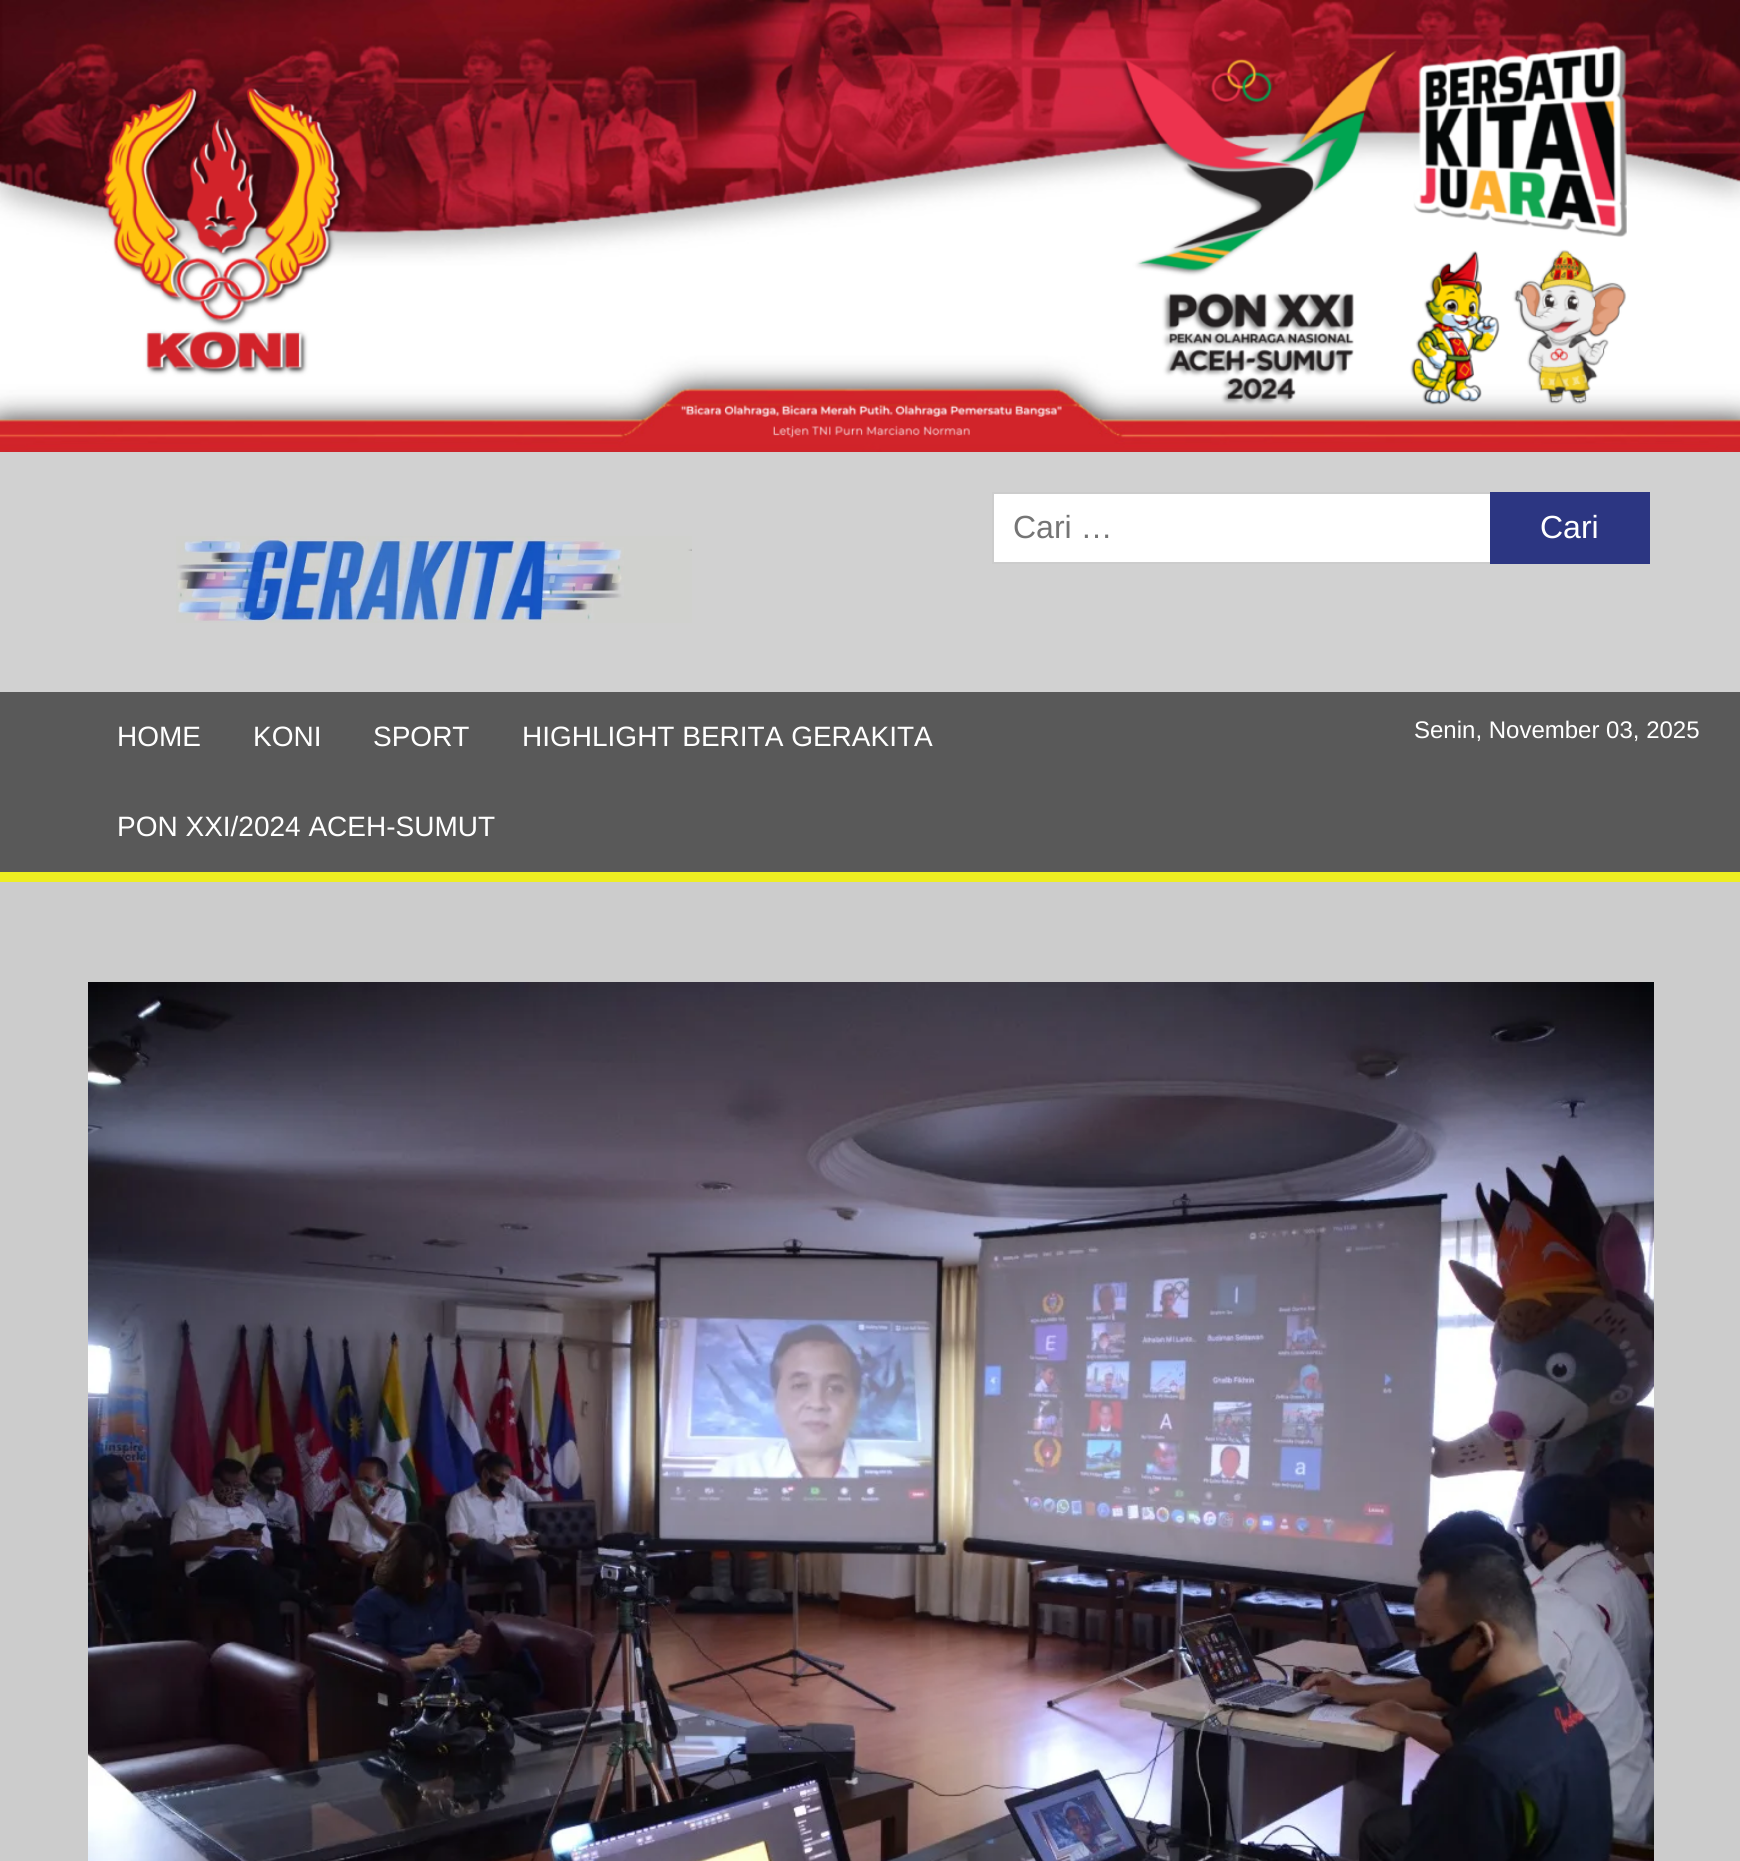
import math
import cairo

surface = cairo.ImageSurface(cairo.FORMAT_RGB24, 1740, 1861)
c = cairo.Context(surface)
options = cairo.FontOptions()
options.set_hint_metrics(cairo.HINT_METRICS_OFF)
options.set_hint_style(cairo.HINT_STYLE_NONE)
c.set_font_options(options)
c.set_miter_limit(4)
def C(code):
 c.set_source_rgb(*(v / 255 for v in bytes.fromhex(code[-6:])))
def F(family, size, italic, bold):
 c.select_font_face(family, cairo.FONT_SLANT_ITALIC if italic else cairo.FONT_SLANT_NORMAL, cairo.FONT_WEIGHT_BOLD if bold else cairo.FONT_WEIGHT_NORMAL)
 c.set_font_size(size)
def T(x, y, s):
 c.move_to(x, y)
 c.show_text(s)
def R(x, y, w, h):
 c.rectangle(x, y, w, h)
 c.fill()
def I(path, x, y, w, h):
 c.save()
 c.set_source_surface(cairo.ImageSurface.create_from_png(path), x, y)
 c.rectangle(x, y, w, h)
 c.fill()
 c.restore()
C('cccccc')
c.paint()
I('1.png',0,0,1740,452)
C('d1d1d1')
R(0,452,1740,240)
C('ffffff')
c.rectangle(993,493,498,70)
c.fill_preserve()
C('cccccc')
c.stroke()
F('Arimo',32,0,0)
C('757575')
T(1013,538,'Cari …')
C('2c3682')
R(1490,492,160,72)
C('ffffff')
T(1540,538,'Cari')
I('2.png',176,536,516,87)
C('595959')
R(0,692,1740,180)
C('eeee22')
R(0,872,1740,10)
F('Arimo',28,0,0)
C('ffffff')
T(117,746,'HOME')
T(253,746,'KONI')
T(373,746,'SPORT')
T(522,746,'HIGHLIGHT BERITA GERAKITA')
T(117,836,'PON XXI/2024 ACEH-SUMUT')
F('Arimo',24,0,0)
T(1414,738,'Senin, November 03, 2025')
I('3.png',88,982,1566,879)
surface.write_to_png('o.png')
